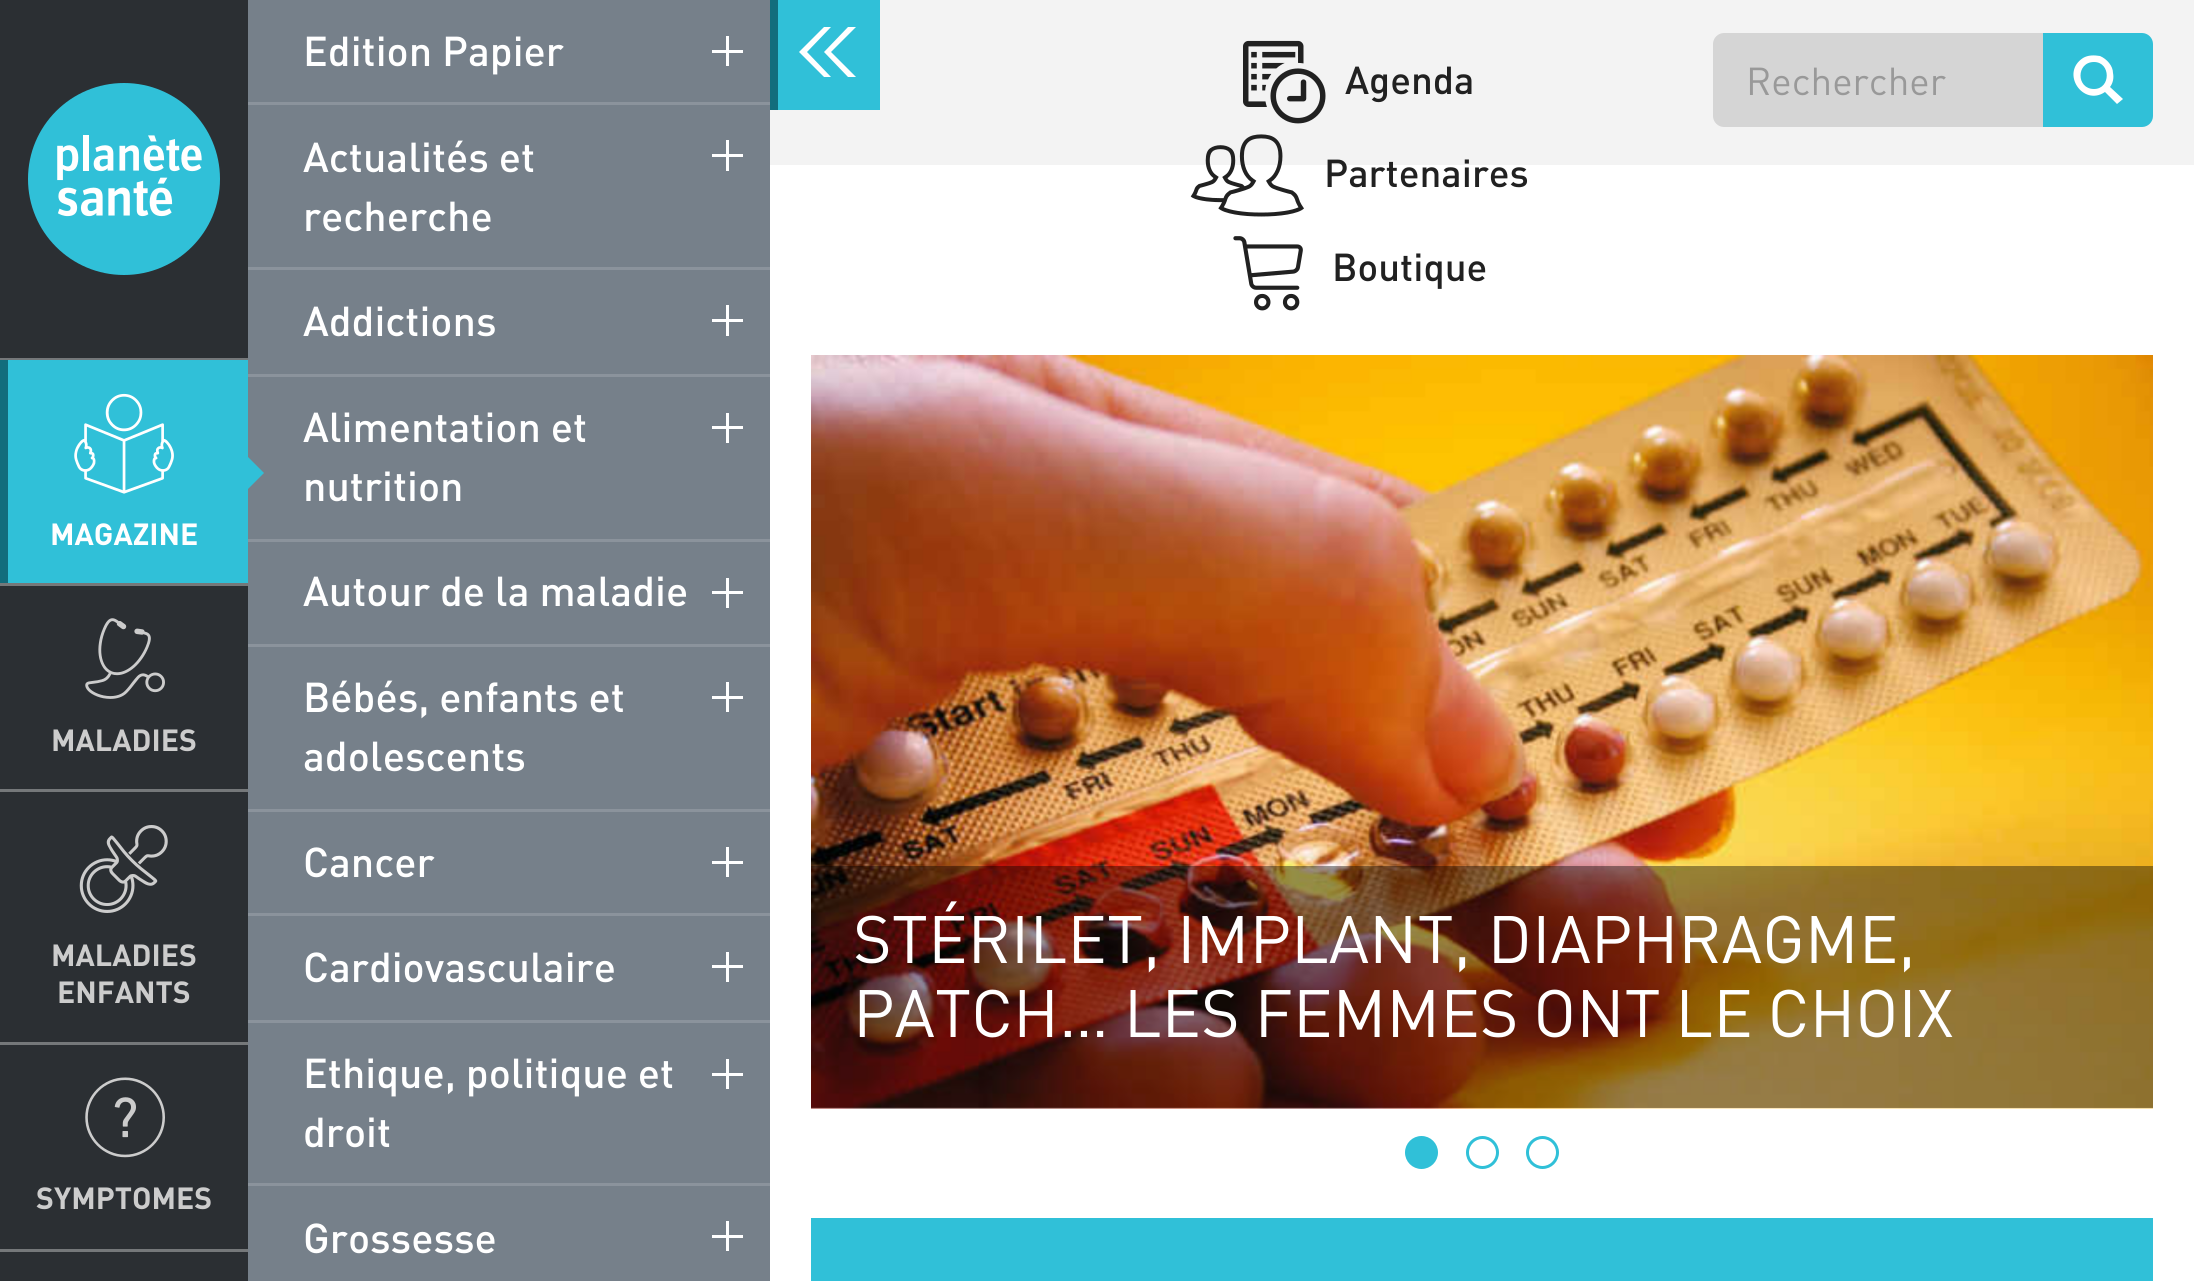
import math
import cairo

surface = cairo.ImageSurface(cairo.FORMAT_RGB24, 2194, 1281)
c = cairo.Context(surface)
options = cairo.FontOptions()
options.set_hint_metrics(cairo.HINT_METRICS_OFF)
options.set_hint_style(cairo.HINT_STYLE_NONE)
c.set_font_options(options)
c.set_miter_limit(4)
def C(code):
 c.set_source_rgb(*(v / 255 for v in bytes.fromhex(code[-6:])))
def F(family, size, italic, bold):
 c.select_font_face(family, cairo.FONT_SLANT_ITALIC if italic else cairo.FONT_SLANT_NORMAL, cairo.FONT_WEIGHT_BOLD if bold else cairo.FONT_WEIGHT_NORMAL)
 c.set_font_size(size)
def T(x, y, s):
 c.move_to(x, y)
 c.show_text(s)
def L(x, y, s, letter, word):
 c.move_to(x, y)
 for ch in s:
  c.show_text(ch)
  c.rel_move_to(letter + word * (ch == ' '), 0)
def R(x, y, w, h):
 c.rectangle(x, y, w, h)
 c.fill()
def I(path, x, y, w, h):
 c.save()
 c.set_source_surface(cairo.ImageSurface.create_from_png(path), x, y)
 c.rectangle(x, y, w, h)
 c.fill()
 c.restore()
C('ffffff')
c.paint()
C('2b2f33')
R(0,0,248,1281)
C('76808a')
R(248,0,522,1281)
C('75787a')
R(0,358,248,2)
R(0,583,248,3)
C('30c0d8')
R(8,360,240,223)
C('126c7c')
R(0,360,8,223)
I('1.png',74,393,100,101)
C('30c0d8')
c.new_path()
c.move_to(247.5,489.5)
c.line_to(247.5,456.5)
c.line_to(264,473)
c.close_path()
c.fill()
F('DIN',30.25,0,1)
C('ffffff')
T(50,545,'MAGAZINE')
C('8b939c')
R(248,102,522,3)
F('DIN Medium',41.25,0,0)
C('ffffff')
T(303,66,'Edition Papier')
R(712,50,31,3)
R(726,36,3,30)
C('8b939c')
R(248,267,522,3)
C('ffffff')
T(303,172,'Actualités et')
T(303,231,'recherche')
R(712,154,31,3)
R(726,140,3,31)
C('8b939c')
R(248,374,522,3)
C('ffffff')
T(303,336,'Addictions')
R(712,319,31,3)
R(726,305,3,31)
C('8b939c')
R(248,539,522,3)
C('ffffff')
T(303,442,'Alimentation et')
T(303,501,'nutrition')
R(712,426,31,3)
R(726,413,3,30)
C('8b939c')
R(248,644,522,3)
C('ffffff')
T(303,606,'Autour de la maladie')
R(712,591,31,3)
R(726,578,3,30)
C('8b939c')
R(248,809,522,3)
C('ffffff')
T(303,712,'Bébés, enfants et')
T(303,771,'adolescents')
R(712,696,31,3)
R(726,682,3,30)
C('8b939c')
R(248,913,522,3)
C('ffffff')
T(303,877,'Cancer')
R(712,861,31,3)
R(726,847,3,30)
C('8b939c')
R(248,1020,522,3)
C('ffffff')
T(303,982,'Cardiovasculaire')
R(712,965,31,3)
R(726,952,3,30)
C('8b939c')
R(248,1183,522,3)
C('ffffff')
T(303,1088,'Ethique, politique et')
T(303,1147,'droit')
R(712,1073,31,3)
R(726,1059,3,30)
T(303,1253,'Grossesse')
R(712,1235,31,3)
R(726,1221,3,30)
C('75787a')
R(0,789,248,3)
I('2.png',85,618,80,81)
F('DIN',30.25,0,1)
C('cccccc')
T(51,751,'MALADIES')
C('75787a')
R(0,1042,248,3)
I('3.png',79,825,89,88)
C('cccccc')
T(51,966,'MALADIES')
T(57,1003,'ENFANTS')
C('75787a')
R(0,1249,248,3)
I('4.png',85,1077,80,81)
C('cccccc')
T(36,1209,'SYMPTOMES')
C('f3f3f3')
R(770,0,1424,165)
C('30c0d8')
R(778,0,102,110)
C('126c7c')
R(770,0,8,110)
C('ffffff')
c.new_path()
c.move_to(831,77)
c.line_to(824,77)
c.line_to(799,52)
c.line_to(824,27)
c.line_to(831,27)
c.line_to(807,52)
c.close_path()
c.move_to(856,77)
c.line_to(848,77)
c.line_to(824,52)
c.line_to(848,27)
c.line_to(856,27)
c.line_to(831,52)
c.close_path()
c.fill()
C('30c0d8')
c.arc(124,179,96,0,2 * math.pi)
c.fill()
I('5.png',57,135,145,82)
I('6.png',1243,40,83,84)
F('DIN Medium',38.5,0,0)
C('212121')
T(1345,94,'Agenda')
I('7.png',1190,134,114,83)
T(1324,187,'Partenaires')
I('8.png',1233,236,70,75)
T(1332,281,'Boutique')
C('d5d5d5')
c.new_path()
c.move_to(1724,33)
c.line_to(2043,33)
c.line_to(2043,127)
c.line_to(1724,127)
c.curve_to(1718,127,1713,122,1713,116)
c.line_to(1713,44)
c.curve_to(1713,38,1718,33,1724,33)
c.close_path()
c.fill()
F('DIN',38.5,0,0)
C('999999')
T(1746,95,'Rechercher')
C('30c0d8')
c.new_path()
c.move_to(2043,33)
c.line_to(2142,33)
c.curve_to(2148,33,2153,38,2153,44)
c.line_to(2153,116)
c.curve_to(2153,122,2148,127,2142,127)
c.line_to(2043,127)
c.close_path()
c.fill()
C('ffffff')
c.new_path()
c.move_to(2110,87)
c.curve_to(2113,83,2114,78,2113,73)
c.curve_to(2113,66,2107,59,2100,56)
c.curve_to(2094,55,2088,55,2083,58)
c.curve_to(2060,73,2083,107,2105,92)
c.line_to(2117,104)
c.line_to(2123,99)
c.close_path()
c.move_to(2094,89)
c.curve_to(2076,89,2076,62,2094,62)
c.curve_to(2111,62,2111,89,2094,89)
c.close_path()
c.fill()
I('9.png',811,355,1342,754)
c.set_source_rgba(0,0,0,0.4)
R(811,866,1342,242)
F('DIN',66,0,0)
C('ffffff')
T(853,963,'STÉRILET, IMPLANT, DIAPHRAGME,')
L(853,1037,'PATCH… LES FEMMES ONT LE CHOIX',0,-1.75)
C('30c0d8')
c.new_path()
c.arc(1421.5,1152.5,15,0,2 * math.pi)
c.fill_preserve()
c.set_line_width(3)
c.stroke()
c.arc(1482.5,1152.5,15,0,2 * math.pi)
c.stroke()
c.arc(1542.5,1152.5,15,0,2 * math.pi)
c.stroke()
R(811,1218,1342,63)
surface.write_to_png('o.png')
